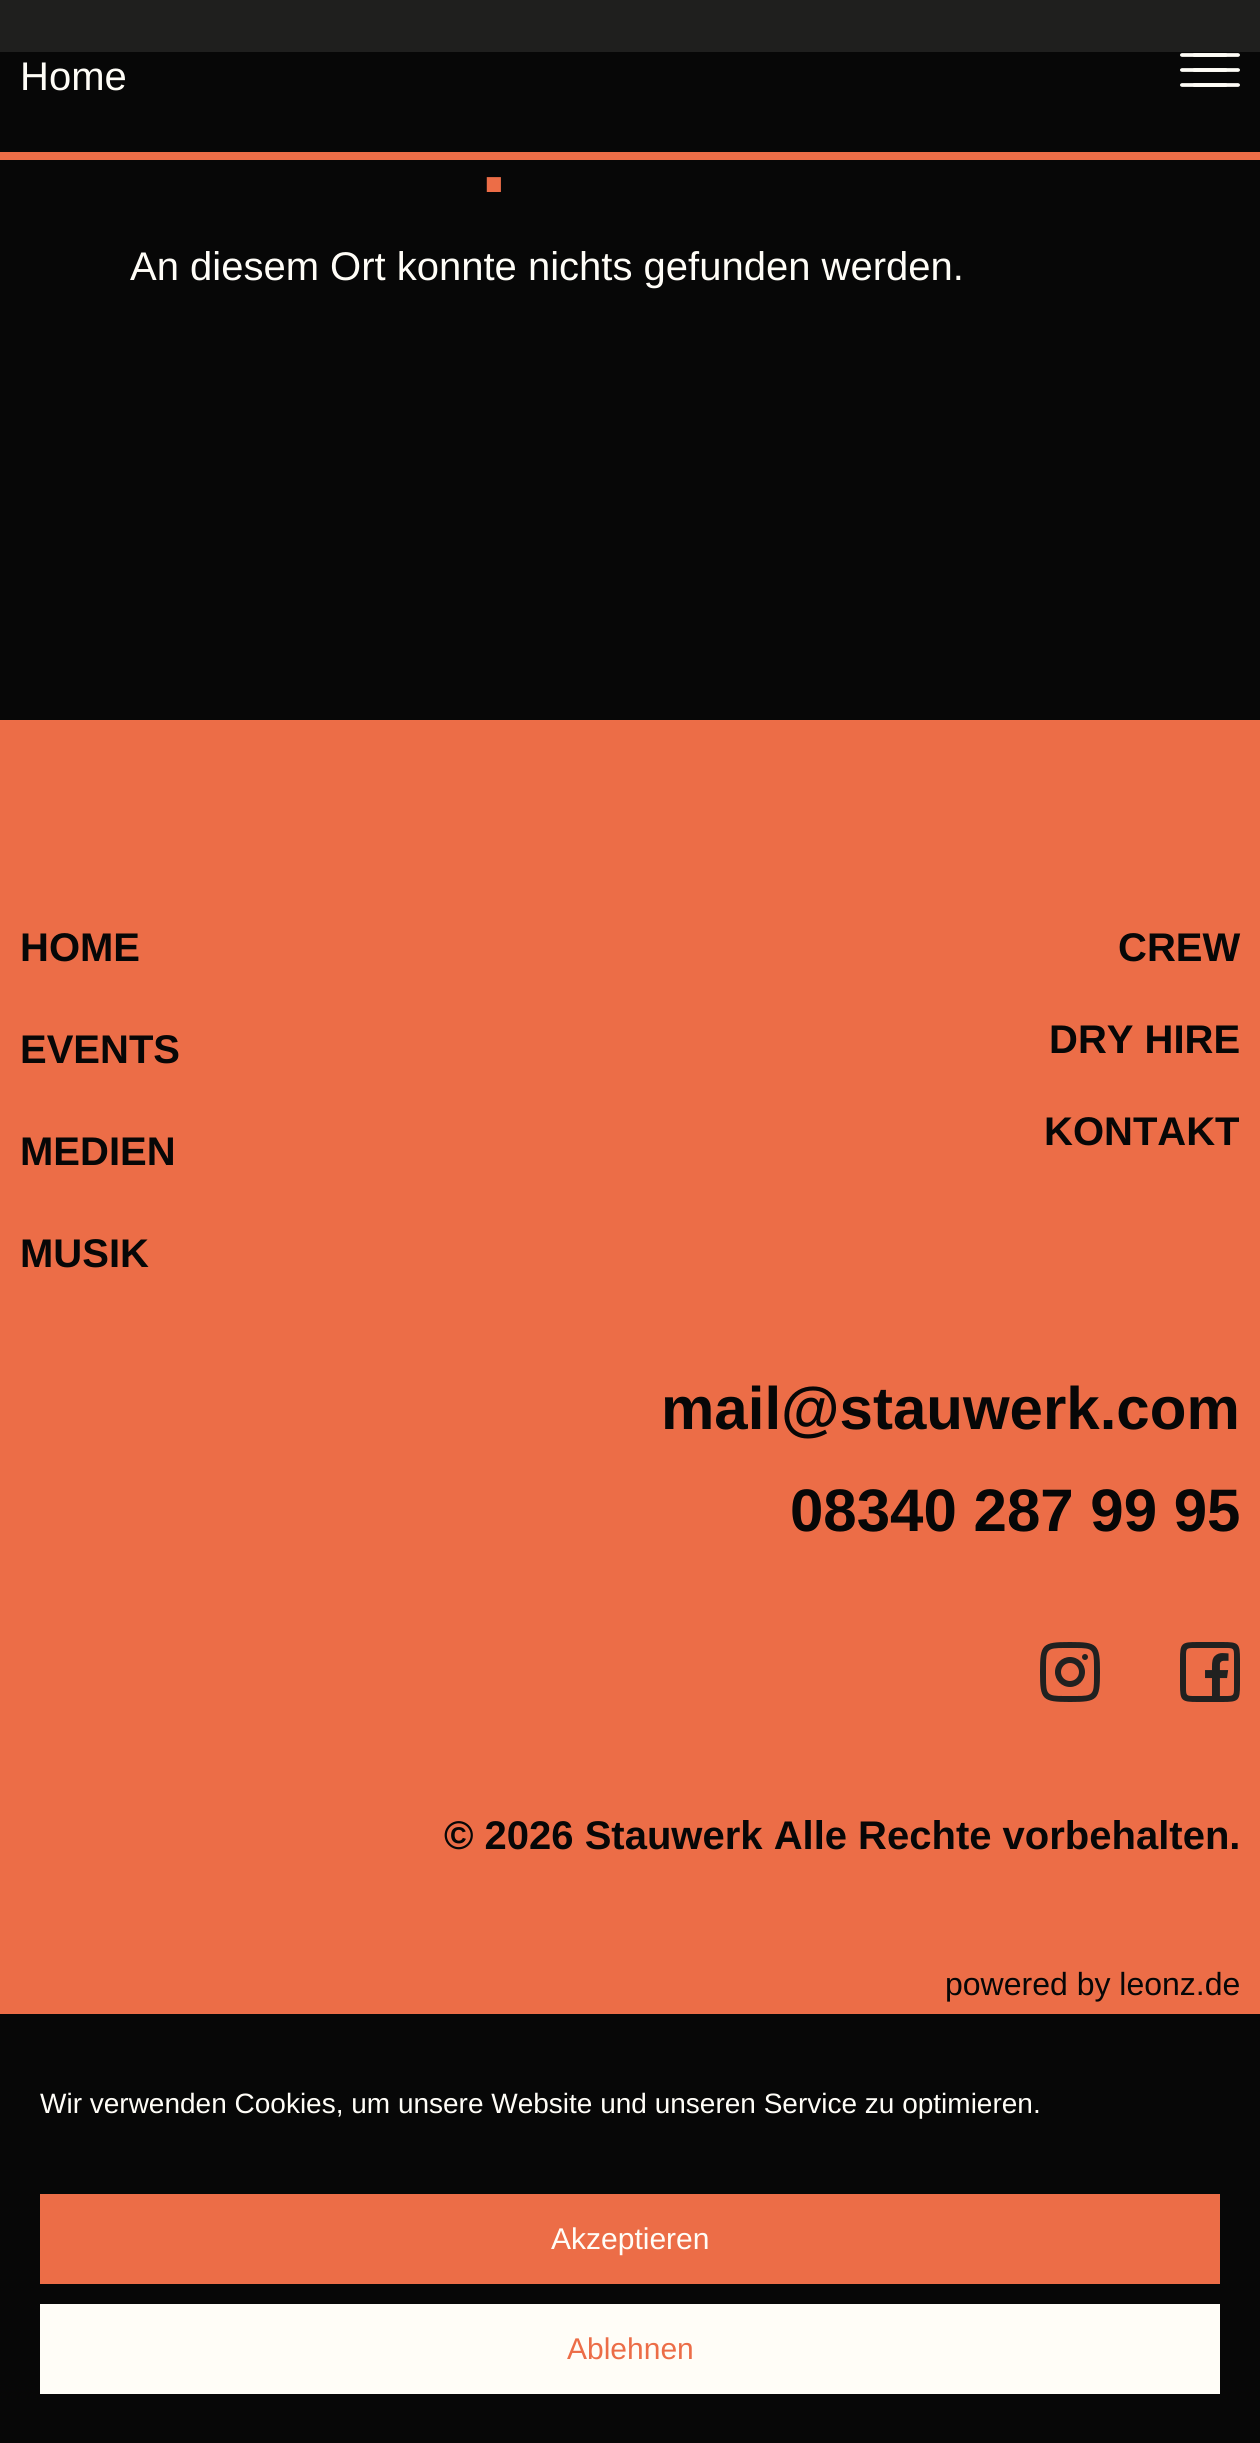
import math
import cairo

surface = cairo.ImageSurface(cairo.FORMAT_RGB24, 1260, 2443)
c = cairo.Context(surface)
options = cairo.FontOptions()
options.set_hint_metrics(cairo.HINT_METRICS_OFF)
options.set_hint_style(cairo.HINT_STYLE_NONE)
c.set_font_options(options)
c.set_miter_limit(4)
def C(code):
 c.set_source_rgb(*(v / 255 for v in bytes.fromhex(code[-6:])))
def F(family, size, italic, bold):
 c.select_font_face(family, cairo.FONT_SLANT_ITALIC if italic else cairo.FONT_SLANT_NORMAL, cairo.FONT_WEIGHT_BOLD if bold else cairo.FONT_WEIGHT_NORMAL)
 c.set_font_size(size)
def T(x, y, s):
 c.move_to(x, y)
 c.show_text(s)
def R(x, y, w, h):
 c.rectangle(x, y, w, h)
 c.fill()
def I(path, x, y, w, h):
 c.save()
 c.set_source_surface(cairo.ImageSurface.create_from_png(path), x, y)
 c.rectangle(x, y, w, h)
 c.fill()
 c.restore()
C('070707')
c.paint()
C('fffdf7')
R(0,0,1260,52)
C('ec6d47')
R(0,152,1260,8)
c.set_source_rgba(0.027,0.027,0.027,0.9)
R(0,0,1260,52)
F('Liberation Sans',40,0,0)
C('fffdf7')
T(20,90,'Home')
I('1.png',1180,53,60,34)
F('Liberation Sans',100,0,1)
C('ec6d47')
T(480,192,'.')
F('Liberation Sans',40,0,0)
C('fffdf7')
T(130,280,'An diesem Ort konnte nichts gefunden werden.')
C('ec6d47')
R(0,720,1260,1294)
F('Liberation Sans',40,0,1)
C('070707')
T(20,961,'HOME')
T(20,1063,'EVENTS')
T(20,1165,'MEDIEN')
T(20,1267,'MUSIK')
T(1118,961,'CREW')
T(1049,1053,'DRY HIRE')
T(1044,1145,'KONTAKT')
F('Liberation Sans',60,0,1)
T(661,1429,'mail@stauwerk.com')
T(790,1531,'08340 287 99 95')
I('2.png',1040,1642,60,60)
I('3.png',1180,1642,60,60)
F('Liberation Sans',40,0,1)
T(444,1849,'© 2026 Stauwerk Alle Rechte vorbehalten.')
F('Liberation Sans',32,0,0)
T(945,1995,'powered by leonz.de')
F('Liberation Sans',28,0,0)
C('fffdf7')
T(40,2113,'Wir verwenden Cookies, um unsere Website und unseren Service zu optimieren.')
C('ec6d47')
R(40,2194,1180,90)
F('Liberation Sans',30,0,0)
C('fffdf7')
T(551,2249,'Akzeptieren')
R(40,2304,1180,90)
C('ec6d47')
T(567,2359,'Ablehnen')
surface.write_to_png('o.png')
